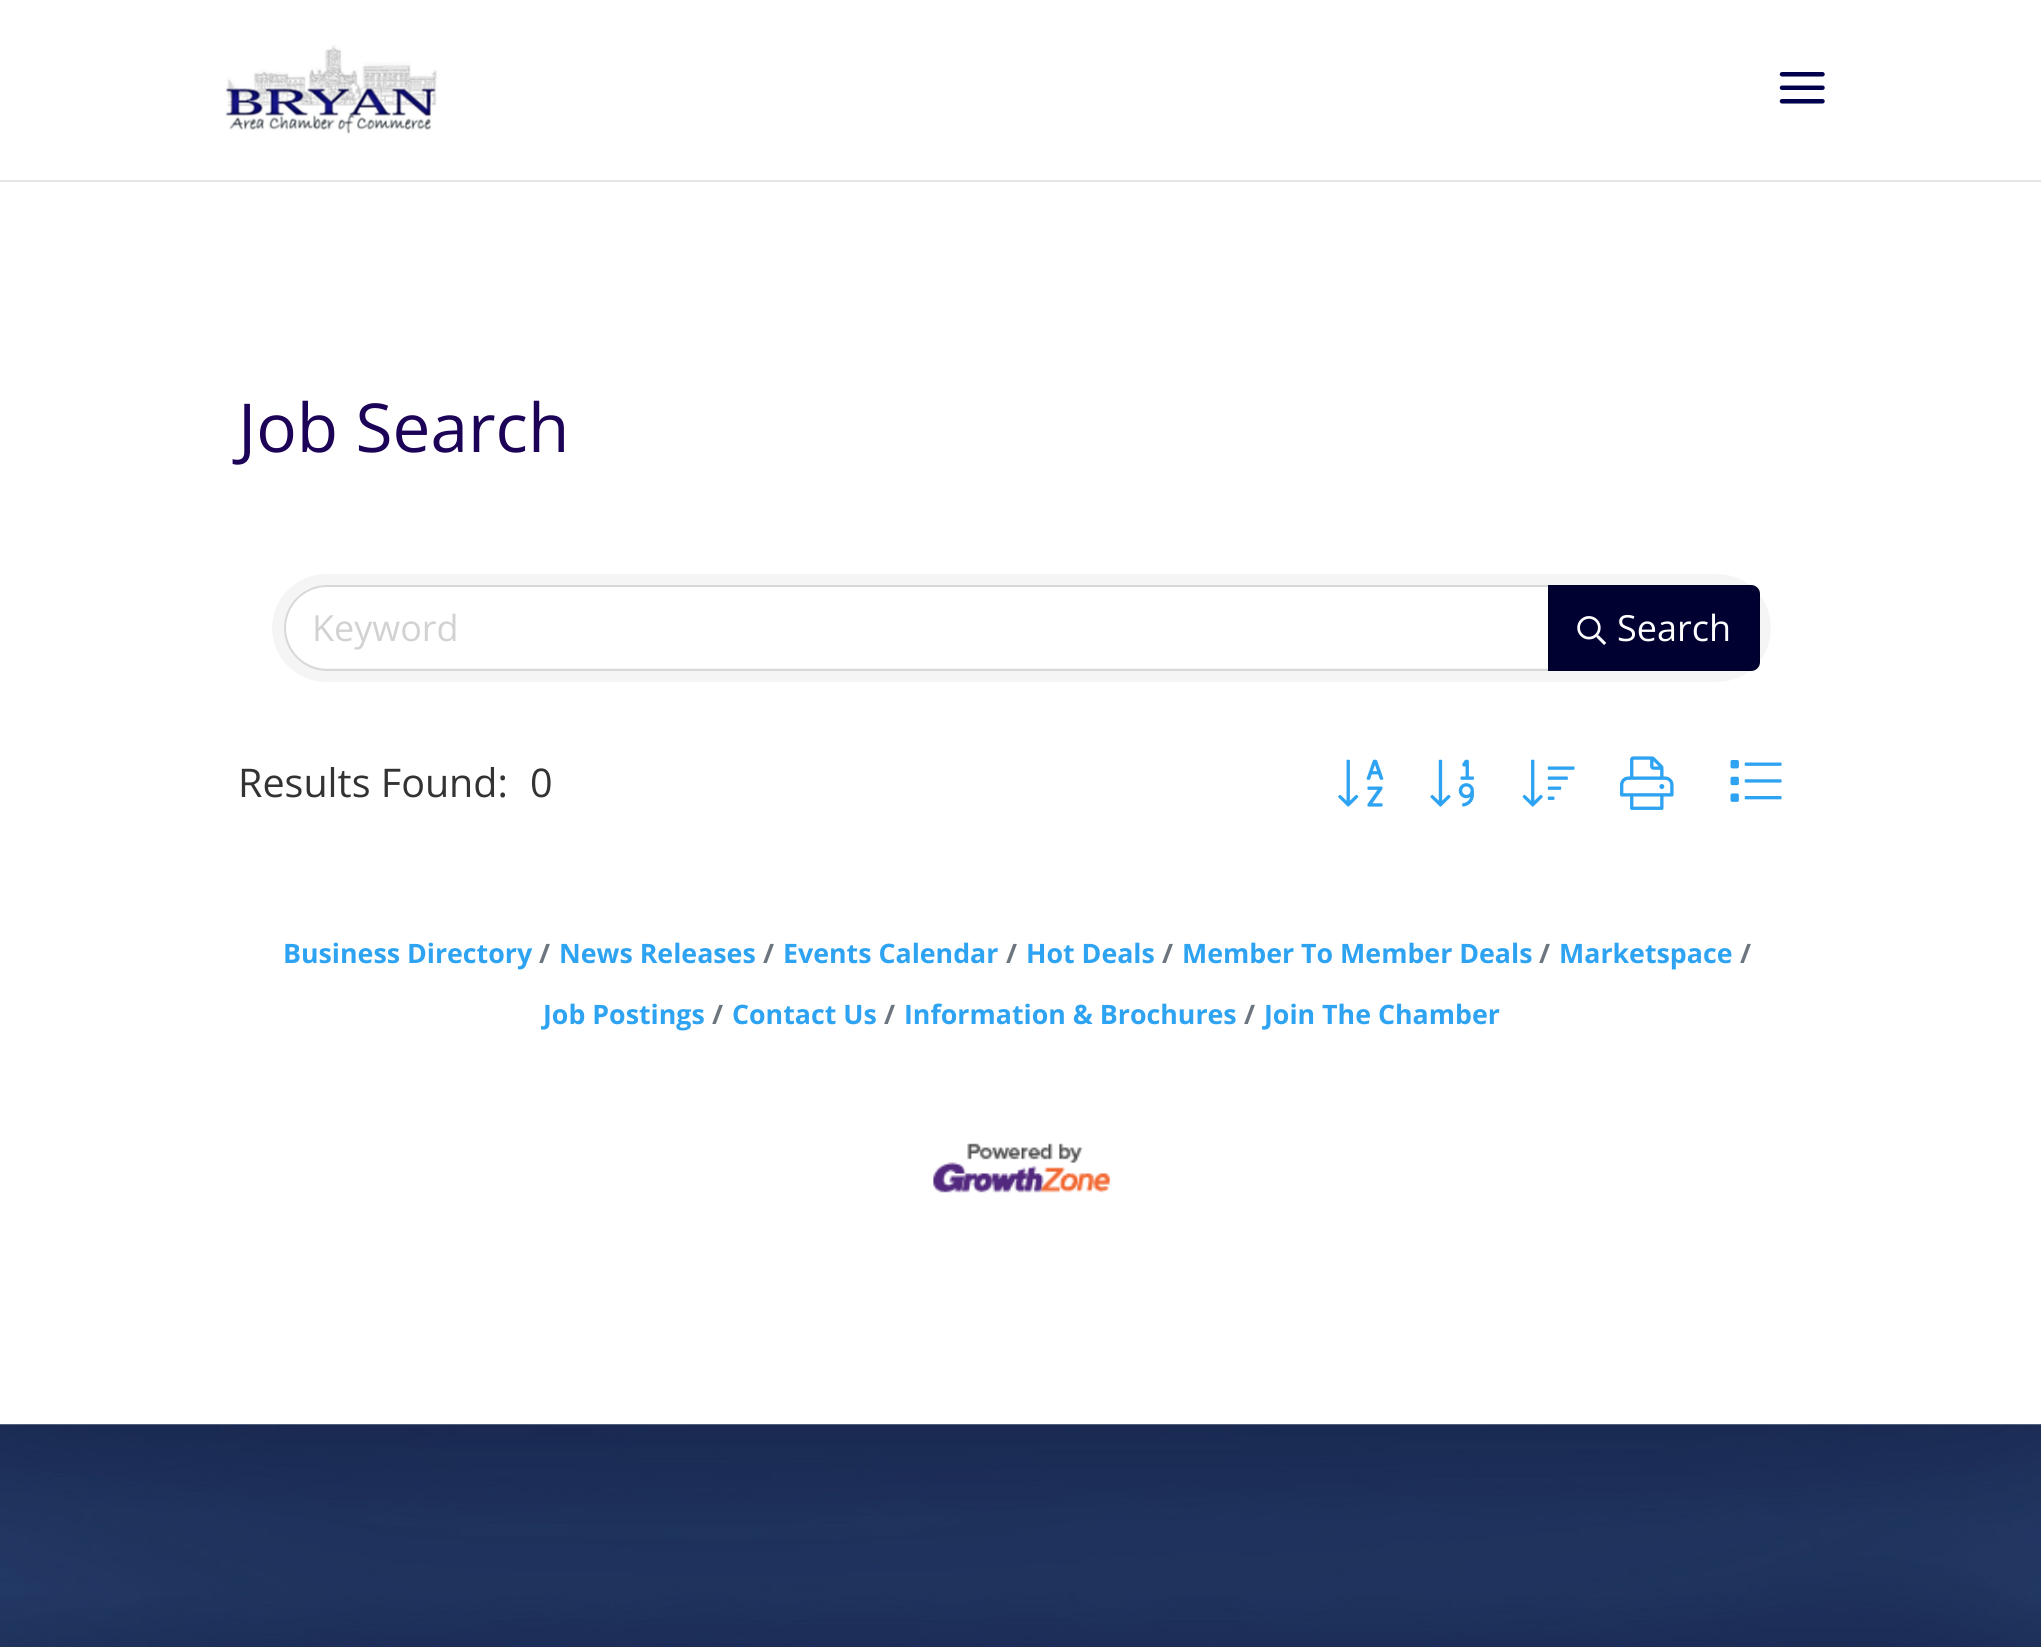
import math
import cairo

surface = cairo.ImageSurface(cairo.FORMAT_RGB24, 2041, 1647)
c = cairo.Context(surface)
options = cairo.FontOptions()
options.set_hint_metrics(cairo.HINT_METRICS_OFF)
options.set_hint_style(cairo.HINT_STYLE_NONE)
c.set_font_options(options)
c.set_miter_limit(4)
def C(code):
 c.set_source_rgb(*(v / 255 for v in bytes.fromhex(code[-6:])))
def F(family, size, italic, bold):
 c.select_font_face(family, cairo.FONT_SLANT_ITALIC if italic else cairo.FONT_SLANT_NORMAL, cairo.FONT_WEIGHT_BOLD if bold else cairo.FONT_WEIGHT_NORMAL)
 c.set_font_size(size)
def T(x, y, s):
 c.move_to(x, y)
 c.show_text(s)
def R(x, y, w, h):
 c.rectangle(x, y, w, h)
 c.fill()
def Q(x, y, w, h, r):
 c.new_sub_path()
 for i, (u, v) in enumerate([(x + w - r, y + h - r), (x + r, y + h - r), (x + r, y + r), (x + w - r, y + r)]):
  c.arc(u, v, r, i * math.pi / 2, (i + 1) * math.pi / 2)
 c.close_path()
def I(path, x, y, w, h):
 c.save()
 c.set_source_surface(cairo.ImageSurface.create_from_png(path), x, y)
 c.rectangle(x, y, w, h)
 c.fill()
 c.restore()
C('ffffff')
c.paint()
C('e6e6e6')
R(0,180,2041,2)
I('1.png',225,44,212,90)
I('2.png',1779,72,46,32)
F('Open Sans',67.5,0,0)
C('1c0358')
T(238,452,'Job Search')
C('f5f5f5')
Q(272,574,1499,108,54)
c.fill()
C('ffffff')
c.new_path()
c.move_to(326.5,587)
c.line_to(1548,587)
c.line_to(1548,668)
c.line_to(326.5,668)
c.curve_to(304,668,286,650,286,627.5)
c.curve_to(286,605,304,587,326.5,587)
c.close_path()
c.fill()
c.new_path()
c.move_to(327,586)
c.line_to(1549,586)
c.line_to(1549,670)
c.line_to(327,670)
c.curve_to(304,670,285,651,285,628)
c.curve_to(285,605,304,586,327,586)
c.close_path()
c.set_source_rgba(0,0,0,0.12)
c.stroke()
F('Open Sans',36,0,0)
C('d2d2d2')
T(312,641,'Keyword')
C('000131')
c.new_path()
c.move_to(1548,585)
c.line_to(1751,585)
c.curve_to(1756,585,1760,589,1760,594)
c.line_to(1760,662)
c.curve_to(1760,667,1756,671,1751,671)
c.line_to(1548,671)
c.close_path()
c.fill()
c.new_path()
c.move_to(1549,586)
c.line_to(1751,586)
c.curve_to(1755.5,586,1759,589.5,1759,594)
c.line_to(1759,662)
c.curve_to(1759,666.5,1755.5,670,1751,670)
c.line_to(1549,670)
c.close_path()
c.set_source_rgba(0,0,0,0.12)
c.stroke()
I('3.png',1577,616,29,29)
C('ffffff')
T(1617,641,'Search')
F('Open Sans',39.5,0,0)
C('333333')
T(238,797,'Results Found:')
T(530,797,'0')
I('4.png',1338,759,46,48)
I('5.png',1430,759,44,48)
I('6.png',1522,759,53,48)
I('7.png',1620,756,54,54)
I('8.png',1730,760,52,42)
F('Open Sans',26.75,0,1)
C('2ea3f2')
T(283,963,'Business Directory')
C('6c757d')
T(539,963,'/')
C('2ea3f2')
T(559,963,'News Releases')
C('6c757d')
T(763,963,'/')
C('2ea3f2')
T(783,963,'Events Calendar')
C('6c757d')
T(1006,963,'/')
C('2ea3f2')
T(1026,963,'Hot Deals')
C('6c757d')
T(1162,963,'/')
C('2ea3f2')
T(1182,963,'Member To Member Deals')
C('6c757d')
T(1539,963,'/')
C('2ea3f2')
T(1559,963,'Marketspace')
C('6c757d')
T(1740,963,'/')
C('2ea3f2')
T(543,1024,'Job Postings')
C('6c757d')
T(712,1024,'/')
C('2ea3f2')
T(732,1024,'Contact Us')
C('6c757d')
T(884,1024,'/')
C('2ea3f2')
T(904,1024,'Information & Brochures')
C('6c757d')
T(1244,1024,'/')
C('2ea3f2')
T(1264,1024,'Join The Chamber')
I('9.png',933,1143,178,50)
I('10.png',0,1424,2041,223)
surface.write_to_png('o.png')
